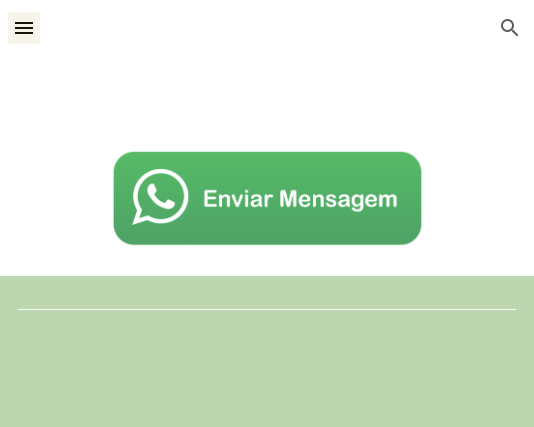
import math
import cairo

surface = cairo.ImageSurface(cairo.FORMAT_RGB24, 534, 427)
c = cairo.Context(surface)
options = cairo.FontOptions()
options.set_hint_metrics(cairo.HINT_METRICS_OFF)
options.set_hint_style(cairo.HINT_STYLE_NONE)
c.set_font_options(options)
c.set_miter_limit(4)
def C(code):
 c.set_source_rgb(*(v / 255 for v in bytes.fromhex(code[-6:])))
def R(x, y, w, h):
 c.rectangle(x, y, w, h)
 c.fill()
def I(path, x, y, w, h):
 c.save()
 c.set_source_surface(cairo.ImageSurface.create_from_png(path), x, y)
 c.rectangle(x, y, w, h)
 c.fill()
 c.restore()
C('ffffff')
c.paint()
C('f6f3ea')
R(8,12,32,32)
C('16120a')
R(15,22,18,2)
R(15,27,18,2)
R(15,32,18,2)
I('1.png',501,19,18,18)
I('2.png',112,151,310,95)
C('bcd7b0')
R(0,276,534,151)
C('f9fbf8')
R(18,309,498,1)
surface.write_to_png('o.png')
